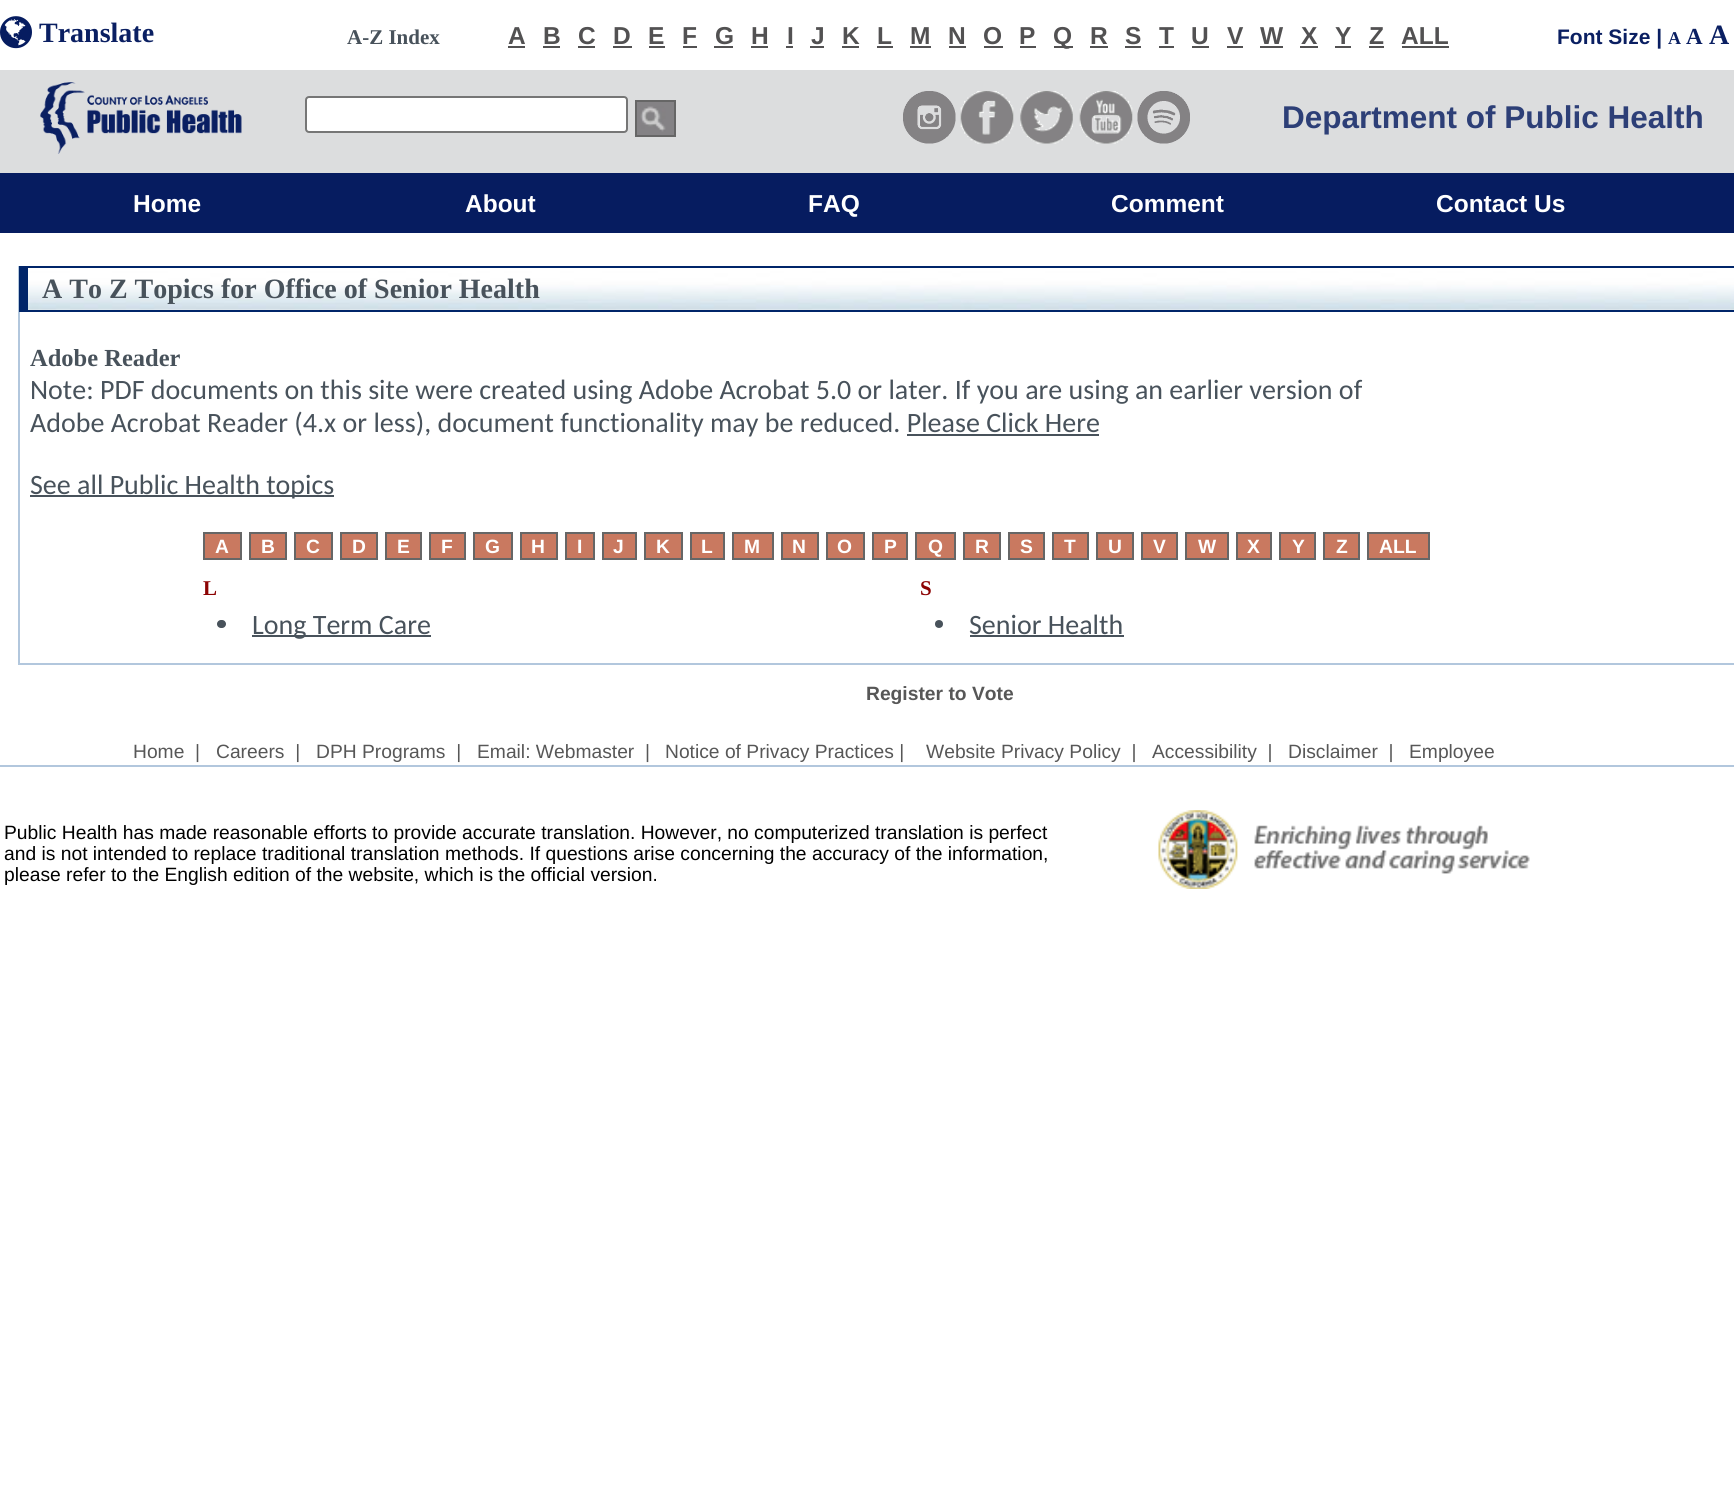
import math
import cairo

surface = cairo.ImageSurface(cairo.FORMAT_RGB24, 1734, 1486)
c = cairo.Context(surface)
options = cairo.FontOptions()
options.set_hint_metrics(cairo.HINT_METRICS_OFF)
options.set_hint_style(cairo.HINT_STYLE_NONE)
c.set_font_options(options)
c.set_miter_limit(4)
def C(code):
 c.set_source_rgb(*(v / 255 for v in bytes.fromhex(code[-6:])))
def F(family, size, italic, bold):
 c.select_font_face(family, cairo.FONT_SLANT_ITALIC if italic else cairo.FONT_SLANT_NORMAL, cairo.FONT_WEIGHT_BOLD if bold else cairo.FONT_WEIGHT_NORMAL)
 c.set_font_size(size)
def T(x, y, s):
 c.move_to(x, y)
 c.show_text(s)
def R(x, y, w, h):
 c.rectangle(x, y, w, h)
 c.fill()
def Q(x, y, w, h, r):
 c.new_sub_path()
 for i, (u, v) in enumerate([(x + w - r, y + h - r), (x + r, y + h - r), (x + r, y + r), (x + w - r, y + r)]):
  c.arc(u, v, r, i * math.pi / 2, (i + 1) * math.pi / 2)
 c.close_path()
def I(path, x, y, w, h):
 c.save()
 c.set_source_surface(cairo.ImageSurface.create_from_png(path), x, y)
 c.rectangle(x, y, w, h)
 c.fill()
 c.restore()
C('ffffff')
c.paint()
I('1.png',0,16,32,33)
F('Liberation Serif',28,0,1)
C('0a1f62')
T(39,42,'Translate')
F('Liberation Serif',21,0,1)
C('48525b')
T(347,44,'A-Z Index')
F('Liberation Sans',24.5,0,1)
C('525152')
T(508,44,'A')
R(508,46,17,2)
T(543,44,'B')
R(543,46,17,2)
T(578,44,'C')
R(578,46,17,2)
T(613,44,'D')
R(613,46,19,2)
T(648,44,'E')
R(649,46,16,2)
T(682,44,'F')
R(683,46,14,2)
T(715,44,'G')
R(714,46,19,2)
T(751,44,'H')
R(751,46,17,2)
T(787,44,'I')
R(786,46,7,2)
T(811,44,'J')
R(810,46,14,2)
T(842,44,'K')
R(842,46,17,2)
T(877,44,'L')
R(877,46,16,2)
T(910,44,'M')
R(910,46,21,2)
T(948,44,'N')
R(949,46,17,2)
T(983,44,'O')
R(984,46,19,2)
T(1019,44,'P')
R(1020,46,16,2)
R(1054,46,19,2)
T(1053,44,'Q')
T(1090,44,'R')
R(1090,46,18,2)
T(1125,44,'S')
R(1125,46,16,2)
T(1159,44,'T')
R(1159,46,15,2)
T(1191,44,'U')
R(1192,46,17,2)
T(1227,44,'V')
R(1227,46,16,2)
T(1260,44,'W')
R(1260,46,23,2)
T(1301,44,'X')
R(1300,46,18,2)
T(1335,44,'Y')
R(1335,46,16,2)
T(1369,44,'Z')
R(1369,46,15,2)
T(1401,44,'ALL')
R(1402,46,47,2)
F('Liberation Sans',21,0,1)
C('0a1f62')
T(1557,44,'Font Size |')
F('Liberation Serif',18,0,1)
T(1668,44,'A')
F('Liberation Serif',23,0,1)
T(1686,44,'A')
F('Liberation Serif',28,0,1)
T(1709,44,'A')
C('dcddde')
R(0,70,1734,103)
I('2.png',40,82,202,72)
C('ffffff')
Q(306,97,321,35,3)
c.fill_preserve()
C('767676')
c.stroke()
C('848285')
R(637,102,37,33)
I('3.png',640,106,26,26)
c.rectangle(636,101,39,35)
C('666666')
c.stroke()
I('4.png',903,91,53,53)
I('5.png',960,91,54,53)
I('6.png',1020,91,53,53)
I('7.png',1079,91,54,53)
I('8.png',1137,91,53,53)
F('Liberation Sans',31.5,0,1)
C('2d3f77')
T(1282,128,'Department of Public Health')
C('061c60')
R(0,173,1734,60)
F('Liberation Sans',24.5,0,1)
C('ffffff')
T(133,212,'Home')
T(465,212,'About')
T(808,212,'FAQ')
T(1111,212,'Comment')
T(1436,212,'Contact Us')
C('b2c7dd')
R(18,663,1716,2)
R(18,266,2,399)
I('9.png',28,268,1706,42)
C('002569')
R(28,266,1706,2)
R(28,310,1706,2)
R(19,266,9,46)
F('Liberation Serif',28,0,1)
C('48525b')
T(42,298,'A To Z Topics for Office of Senior Health')
F('Liberation Serif',24.5,0,1)
T(30,366,'Adobe Reader')
F('Carlito',28,0,0)
T(30,399,'Note: PDF documents on this site were created using Adobe Acrobat 5.0 or later. If you are using an earlier version of')
T(30,432,'Adobe Acrobat Reader (4.x or less), document functionality may be reduced. Please Click Here')
R(907,434,192,2)
R(30,495,304,2)
T(30,494,'See all Public Health topics')
C('c97960')
c.rectangle(204,533,37,26)
c.fill_preserve()
C('666666')
c.stroke()
F('Liberation Sans',19.25,0,1)
C('ffffff')
T(215,553,'A')
C('c97960')
c.rectangle(250,533,36,26)
c.fill_preserve()
C('666666')
c.stroke()
C('ffffff')
T(261,553,'B')
C('c97960')
c.rectangle(295,533,37,26)
c.fill_preserve()
C('666666')
c.stroke()
C('ffffff')
T(306,553,'C')
C('c97960')
c.rectangle(341,533,36,26)
c.fill_preserve()
C('666666')
c.stroke()
C('ffffff')
T(352,553,'D')
C('c97960')
c.rectangle(386,533,35,26)
c.fill_preserve()
C('666666')
c.stroke()
C('ffffff')
T(397,553,'E')
C('c97960')
c.rectangle(430,533,35,26)
c.fill_preserve()
C('666666')
c.stroke()
C('ffffff')
T(441,553,'F')
C('c97960')
c.rectangle(474,533,38,26)
c.fill_preserve()
C('666666')
c.stroke()
C('ffffff')
T(485,553,'G')
C('c97960')
c.rectangle(521,533,36,26)
c.fill_preserve()
C('666666')
c.stroke()
C('ffffff')
T(531,553,'H')
C('c97960')
c.rectangle(566,533,28,26)
c.fill_preserve()
C('666666')
c.stroke()
C('ffffff')
T(577,553,'I')
C('c97960')
c.rectangle(603,533,33,26)
c.fill_preserve()
C('666666')
c.stroke()
C('ffffff')
T(613,553,'J')
C('c97960')
c.rectangle(645,533,37,26)
c.fill_preserve()
C('666666')
c.stroke()
C('ffffff')
T(656,553,'K')
C('c97960')
c.rectangle(691,533,33,26)
c.fill_preserve()
C('666666')
c.stroke()
C('ffffff')
T(701,553,'L')
C('c97960')
c.rectangle(733,533,40,26)
c.fill_preserve()
C('666666')
c.stroke()
C('ffffff')
T(744,553,'M')
C('c97960')
c.rectangle(782,533,36,26)
c.fill_preserve()
C('666666')
c.stroke()
C('ffffff')
T(792,553,'N')
C('c97960')
c.rectangle(827,533,37,26)
c.fill_preserve()
C('666666')
c.stroke()
C('ffffff')
T(837,553,'O')
C('c97960')
c.rectangle(873,533,34,26)
c.fill_preserve()
C('666666')
c.stroke()
C('ffffff')
T(884,553,'P')
C('c97960')
c.rectangle(916,533,39,26)
c.fill_preserve()
C('666666')
c.stroke()
C('ffffff')
T(928,553,'Q')
C('c97960')
c.rectangle(964,533,36,26)
c.fill_preserve()
C('666666')
c.stroke()
C('ffffff')
T(975,553,'R')
C('c97960')
c.rectangle(1009,533,35,26)
c.fill_preserve()
C('666666')
c.stroke()
C('ffffff')
T(1020,553,'S')
C('c97960')
c.rectangle(1053,533,35,26)
c.fill_preserve()
C('666666')
c.stroke()
C('ffffff')
T(1064,553,'T')
C('c97960')
c.rectangle(1097,533,36,26)
c.fill_preserve()
C('666666')
c.stroke()
C('ffffff')
T(1108,553,'U')
C('c97960')
c.rectangle(1142,533,35,26)
c.fill_preserve()
C('666666')
c.stroke()
C('ffffff')
T(1153,553,'V')
C('c97960')
c.rectangle(1186,533,42,26)
c.fill_preserve()
C('666666')
c.stroke()
C('ffffff')
T(1198,553,'W')
C('c97960')
c.rectangle(1237,533,34,26)
c.fill_preserve()
C('666666')
c.stroke()
C('ffffff')
T(1247,553,'X')
C('c97960')
c.rectangle(1280,533,35,26)
c.fill_preserve()
C('666666')
c.stroke()
C('ffffff')
T(1292,553,'Y')
C('c97960')
c.rectangle(1324,533,35,26)
c.fill_preserve()
C('666666')
c.stroke()
C('ffffff')
T(1336,553,'Z')
C('c97960')
c.rectangle(1368,533,61,26)
c.fill_preserve()
C('666666')
c.stroke()
C('ffffff')
T(1379,553,'ALL')
F('Liberation Serif',21,0,1)
C('8c0303')
T(203,595,'L')
C('48525b')
Q(217,620,9,8,4)
c.fill()
R(252,635,179,2)
F('Carlito',28,0,0)
T(252,634,'Long Term Care')
F('Liberation Serif',21,0,1)
C('8c0303')
T(920,595,'S')
C('48525b')
c.new_path()
c.arc(939,624,4,0,2 * math.pi)
c.fill()
F('Carlito',28,0,0)
T(969,634,'Senior Health')
R(970,635,154,2)
F('Liberation Sans',19.25,0,1)
C('575757')
T(866,700,'Register to Vote')
F('Liberation Sans',19.25,0,0)
T(133,758,'Home  |')
T(216,758,'Careers  |')
T(316,758,'DPH Programs  |')
T(477,758,'Email: Webmaster  |')
T(665,758,'Notice of Privacy Practices |')
T(926,758,'Website Privacy Policy  |')
T(1152,758,'Accessibility  |')
T(1288,758,'Disclaimer  |')
T(1409,758,'Employee')
C('b2c7dd')
R(0,765,1734,2)
C('000000')
T(4,839,'Public Health has made reasonable efforts to provide accurate translation. However, no computerized translation is perfect')
T(4,860,'and is not intended to replace traditional translation methods. If questions arise concerning the accuracy of the information,')
T(4,881,'please refer to the English edition of the website, which is the official version.')
I('10.png',1158,810,372,79)
surface.write_to_png('o.png')
